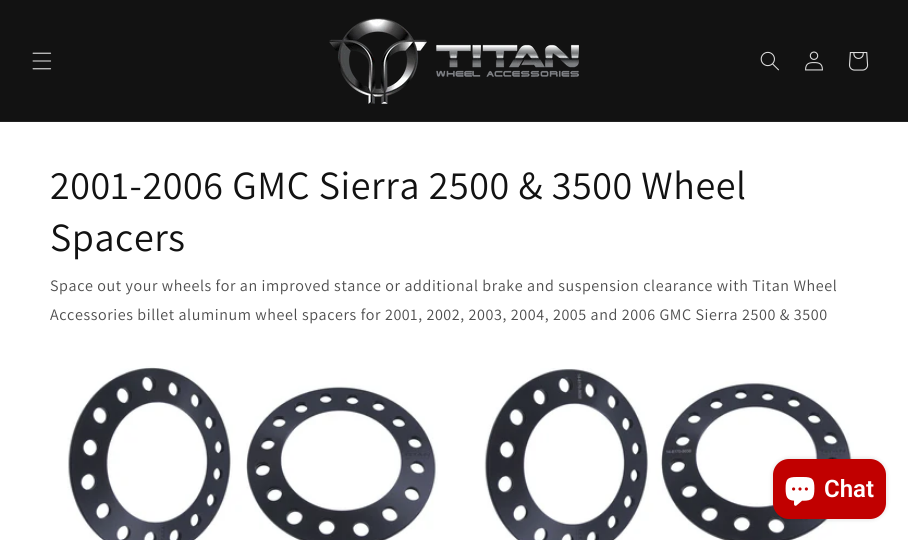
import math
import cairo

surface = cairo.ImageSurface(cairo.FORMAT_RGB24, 908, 540)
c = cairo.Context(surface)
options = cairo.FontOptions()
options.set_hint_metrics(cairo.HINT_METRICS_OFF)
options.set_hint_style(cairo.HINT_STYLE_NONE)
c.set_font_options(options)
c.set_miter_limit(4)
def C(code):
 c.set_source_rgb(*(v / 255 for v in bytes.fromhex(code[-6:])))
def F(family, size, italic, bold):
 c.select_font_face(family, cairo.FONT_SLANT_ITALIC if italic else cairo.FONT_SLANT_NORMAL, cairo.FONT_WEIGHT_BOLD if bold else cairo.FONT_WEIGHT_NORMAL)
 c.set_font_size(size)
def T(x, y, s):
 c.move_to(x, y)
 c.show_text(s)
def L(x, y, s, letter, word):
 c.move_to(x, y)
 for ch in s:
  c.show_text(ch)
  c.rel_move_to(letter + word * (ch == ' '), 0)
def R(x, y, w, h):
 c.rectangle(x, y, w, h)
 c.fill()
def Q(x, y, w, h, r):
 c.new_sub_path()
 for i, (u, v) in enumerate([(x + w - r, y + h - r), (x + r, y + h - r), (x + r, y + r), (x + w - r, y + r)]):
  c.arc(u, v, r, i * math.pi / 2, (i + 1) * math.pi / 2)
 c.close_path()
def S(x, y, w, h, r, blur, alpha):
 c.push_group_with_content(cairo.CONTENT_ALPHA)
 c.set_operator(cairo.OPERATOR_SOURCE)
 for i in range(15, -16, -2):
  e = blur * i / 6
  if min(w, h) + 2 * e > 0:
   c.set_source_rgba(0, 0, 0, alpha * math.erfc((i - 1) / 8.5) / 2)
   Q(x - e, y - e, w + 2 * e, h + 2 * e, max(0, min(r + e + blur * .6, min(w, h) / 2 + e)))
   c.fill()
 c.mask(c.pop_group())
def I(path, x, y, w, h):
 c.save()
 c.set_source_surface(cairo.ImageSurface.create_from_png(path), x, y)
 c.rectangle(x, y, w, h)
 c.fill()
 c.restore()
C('ffffff')
c.paint()
C('121212')
R(0,0,908,121)
C('222222')
R(0,121,908,1)
I('1.png',32,52,20,18)
I('2.png',329,18,250,86)
I('3.png',760,51,19,20)
I('4.png',805,51,18,20)
I('5.png',849,52,20,19)
F('Assistant',40,0,0)
C('121212')
L(50,199,'2001-2006 GMC Sierra 2500 & 3500 Wheel',.6,0)
L(50,251,'Spacers',.6,0)
F('Assistant',16,0,0)
C('4d4d4d')
L(50,291,'Space out your wheels for an improved stance or additional brake and suspension clearance with Titan Wheel',.6,0)
L(50,320,'Accessories billet aluminum wheel spacers for 2001, 2002, 2003, 2004, 2005 and 2006 GMC Sierra 2500 & 3500',.6,0)
I('6.png',67,366,371,174)
I('7.png',484,368,370,172)
C('000000')
S(773,459,113,60,16,2.5,.15)
C('c10000')
Q(773,459,113,60,16)
c.fill()
I('8.png',785,477,30,29)
F('Roboto SemiBold',24,0,0)
C('ffffff')
T(824,497,'Chat')
surface.write_to_png('o.png')
